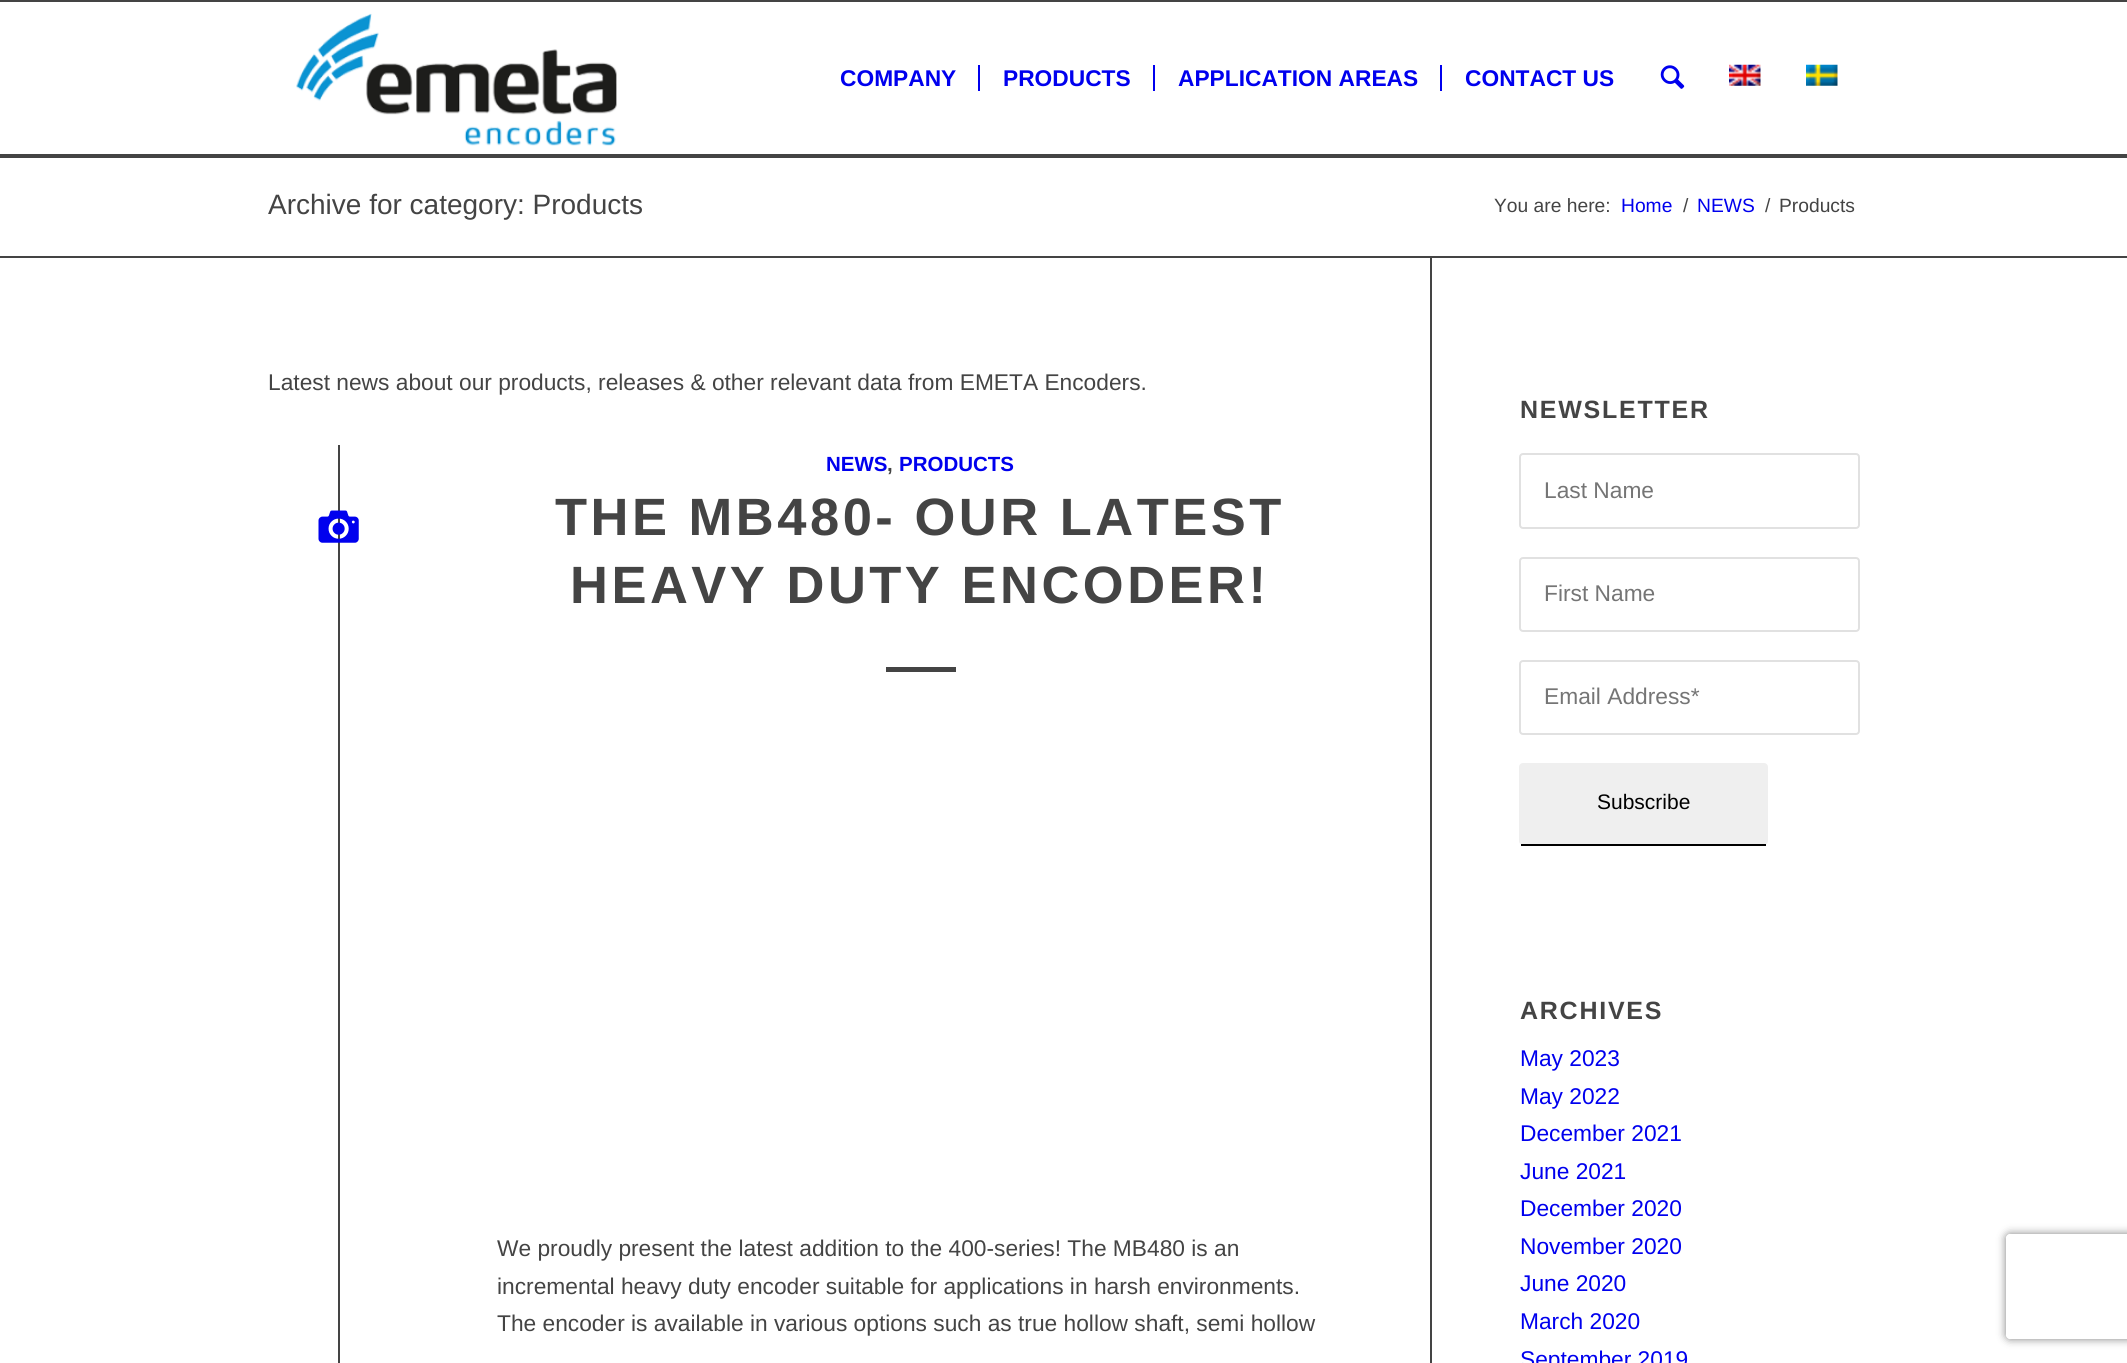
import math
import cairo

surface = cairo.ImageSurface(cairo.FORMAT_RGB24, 2127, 1363)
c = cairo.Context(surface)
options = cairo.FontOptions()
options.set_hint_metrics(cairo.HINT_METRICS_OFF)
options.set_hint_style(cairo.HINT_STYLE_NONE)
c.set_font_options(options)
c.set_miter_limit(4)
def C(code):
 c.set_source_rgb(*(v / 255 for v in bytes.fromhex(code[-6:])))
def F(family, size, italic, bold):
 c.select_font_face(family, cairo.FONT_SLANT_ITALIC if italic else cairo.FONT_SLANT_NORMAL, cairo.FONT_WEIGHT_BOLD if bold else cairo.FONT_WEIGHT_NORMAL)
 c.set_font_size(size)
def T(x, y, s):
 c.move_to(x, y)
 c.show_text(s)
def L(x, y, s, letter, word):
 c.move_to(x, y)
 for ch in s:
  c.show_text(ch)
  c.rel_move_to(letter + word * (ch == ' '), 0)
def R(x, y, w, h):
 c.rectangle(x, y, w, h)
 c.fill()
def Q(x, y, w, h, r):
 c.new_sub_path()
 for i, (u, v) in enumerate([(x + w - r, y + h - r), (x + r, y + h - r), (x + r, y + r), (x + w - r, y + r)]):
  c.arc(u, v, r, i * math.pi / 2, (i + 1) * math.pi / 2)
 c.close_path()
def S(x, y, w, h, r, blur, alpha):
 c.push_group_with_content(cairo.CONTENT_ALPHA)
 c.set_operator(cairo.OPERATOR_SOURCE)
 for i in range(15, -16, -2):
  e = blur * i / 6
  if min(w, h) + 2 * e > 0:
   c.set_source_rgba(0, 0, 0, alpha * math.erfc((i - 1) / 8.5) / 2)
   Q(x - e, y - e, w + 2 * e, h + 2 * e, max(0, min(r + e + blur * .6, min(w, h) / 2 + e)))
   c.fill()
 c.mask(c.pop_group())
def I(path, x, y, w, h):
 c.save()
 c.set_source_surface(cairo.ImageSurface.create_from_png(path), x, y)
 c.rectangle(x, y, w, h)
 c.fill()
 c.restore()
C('ffffff')
c.paint()
C('444444')
R(0,0,2127,2)
I('1.png',296,13,321,133)
F('Liberation Sans',22.75,0,1)
C('0000ee')
T(840,86,'COMPANY')
T(1003,86,'PRODUCTS')
R(978,65,2,26)
T(1178,86,'APPLICATION AREAS')
R(1153,65,2,26)
T(1465,86,'CONTACT US')
R(1440,65,2,26)
I('2.png',1660,65,25,24)
I('3.png',1729,64,32,22)
I('4.png',1806,64,32,22)
C('444444')
R(0,154,2127,4)
F('Liberation Sans',28,0,0)
T(268,214,'Archive for category: Products')
F('Liberation Sans',19.25,0,0)
T(1494,212,'You are here:')
C('0000ee')
T(1621,212,'Home')
C('444444')
T(1683,212,'/')
C('0000ee')
T(1697,212,'NEWS')
C('444444')
T(1765,212,'/')
T(1779,212,'Products')
R(0,256,2127,2)
R(1430,257,2,1106)
F('Liberation Sans',22.75,0,0)
T(268,390,'Latest news about our products, releases & other relevant data from EMETA Encoders.')
R(338,445,2,918)
F('Liberation Sans',20.5,0,1)
C('0000ee')
T(826,471,'NEWS')
C('444444')
T(887,471,',')
C('0000ee')
T(899,471,'PRODUCTS')
F('Liberation Sans',52.5,0,1)
C('444444')
L(555,535,'THE MB480- OUR LATEST',3.5,0)
L(570,603,'HEAVY DUTY ENCODER!',3.5,0)
R(886,667,70,5)
F('Liberation Sans',22.75,0,0)
T(497,1256,'We proudly present the latest addition to the 400-series! The MB480 is an')
T(497,1294,'incremental heavy duty encoder suitable for applications in harsh environments.')
T(497,1331,'The encoder is available in various options such as true hollow shaft, semi hollow')
I('5.png',318,510,41,33)
F('Liberation Sans',25,0,1)
L(1520,418,'NEWSLETTER',1.75,0)
Q(1520,454,339,74,3)
C('e1e1e1')
c.stroke()
F('Liberation Sans',22.75,0,0)
C('757575')
T(1544,498,'Last Name')
Q(1520,558,339,73,3)
C('e1e1e1')
c.stroke()
C('757575')
T(1544,601,'First Name')
Q(1520,661,339,73,3)
C('e1e1e1')
c.stroke()
C('757575')
T(1544,704,'Email Address*')
C('efefef')
Q(1519,763,249,82,4)
c.fill()
C('000000')
R(1521,844,245,2)
F('Liberation Sans',21,0,0)
T(1597,809,'Subscribe')
F('Liberation Sans',25,0,1)
C('444444')
L(1520,1019,'ARCHIVES',1.75,0)
F('Liberation Sans',22.75,0,0)
C('0000ee')
T(1520,1066,'May 2023')
T(1520,1104,'May 2022')
T(1520,1141,'December 2021')
T(1520,1179,'June 2021')
T(1520,1216,'December 2020')
T(1520,1254,'November 2020')
T(1520,1291,'June 2020')
T(1520,1329,'March 2020')
T(1520,1367,'September 2019')
c.save()
c.set_fill_rule(cairo.FILL_RULE_EVEN_ODD)
c.new_path()
c.move_to(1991,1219)
c.line_to(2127,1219)
c.line_to(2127,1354)
c.line_to(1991,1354)
c.close_path()
c.move_to(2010,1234)
c.line_to(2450,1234)
c.curve_to(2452,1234,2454,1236,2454,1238)
c.line_to(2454,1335)
c.curve_to(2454,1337,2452,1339,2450,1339)
c.line_to(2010,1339)
c.curve_to(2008,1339,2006,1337,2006,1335)
c.line_to(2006,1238)
c.curve_to(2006,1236,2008,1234,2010,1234)
c.close_path()
c.clip()
C('808080')
S(2006,1234,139,105,4,4.5,1)
c.restore()
surface.write_to_png('o.png')
